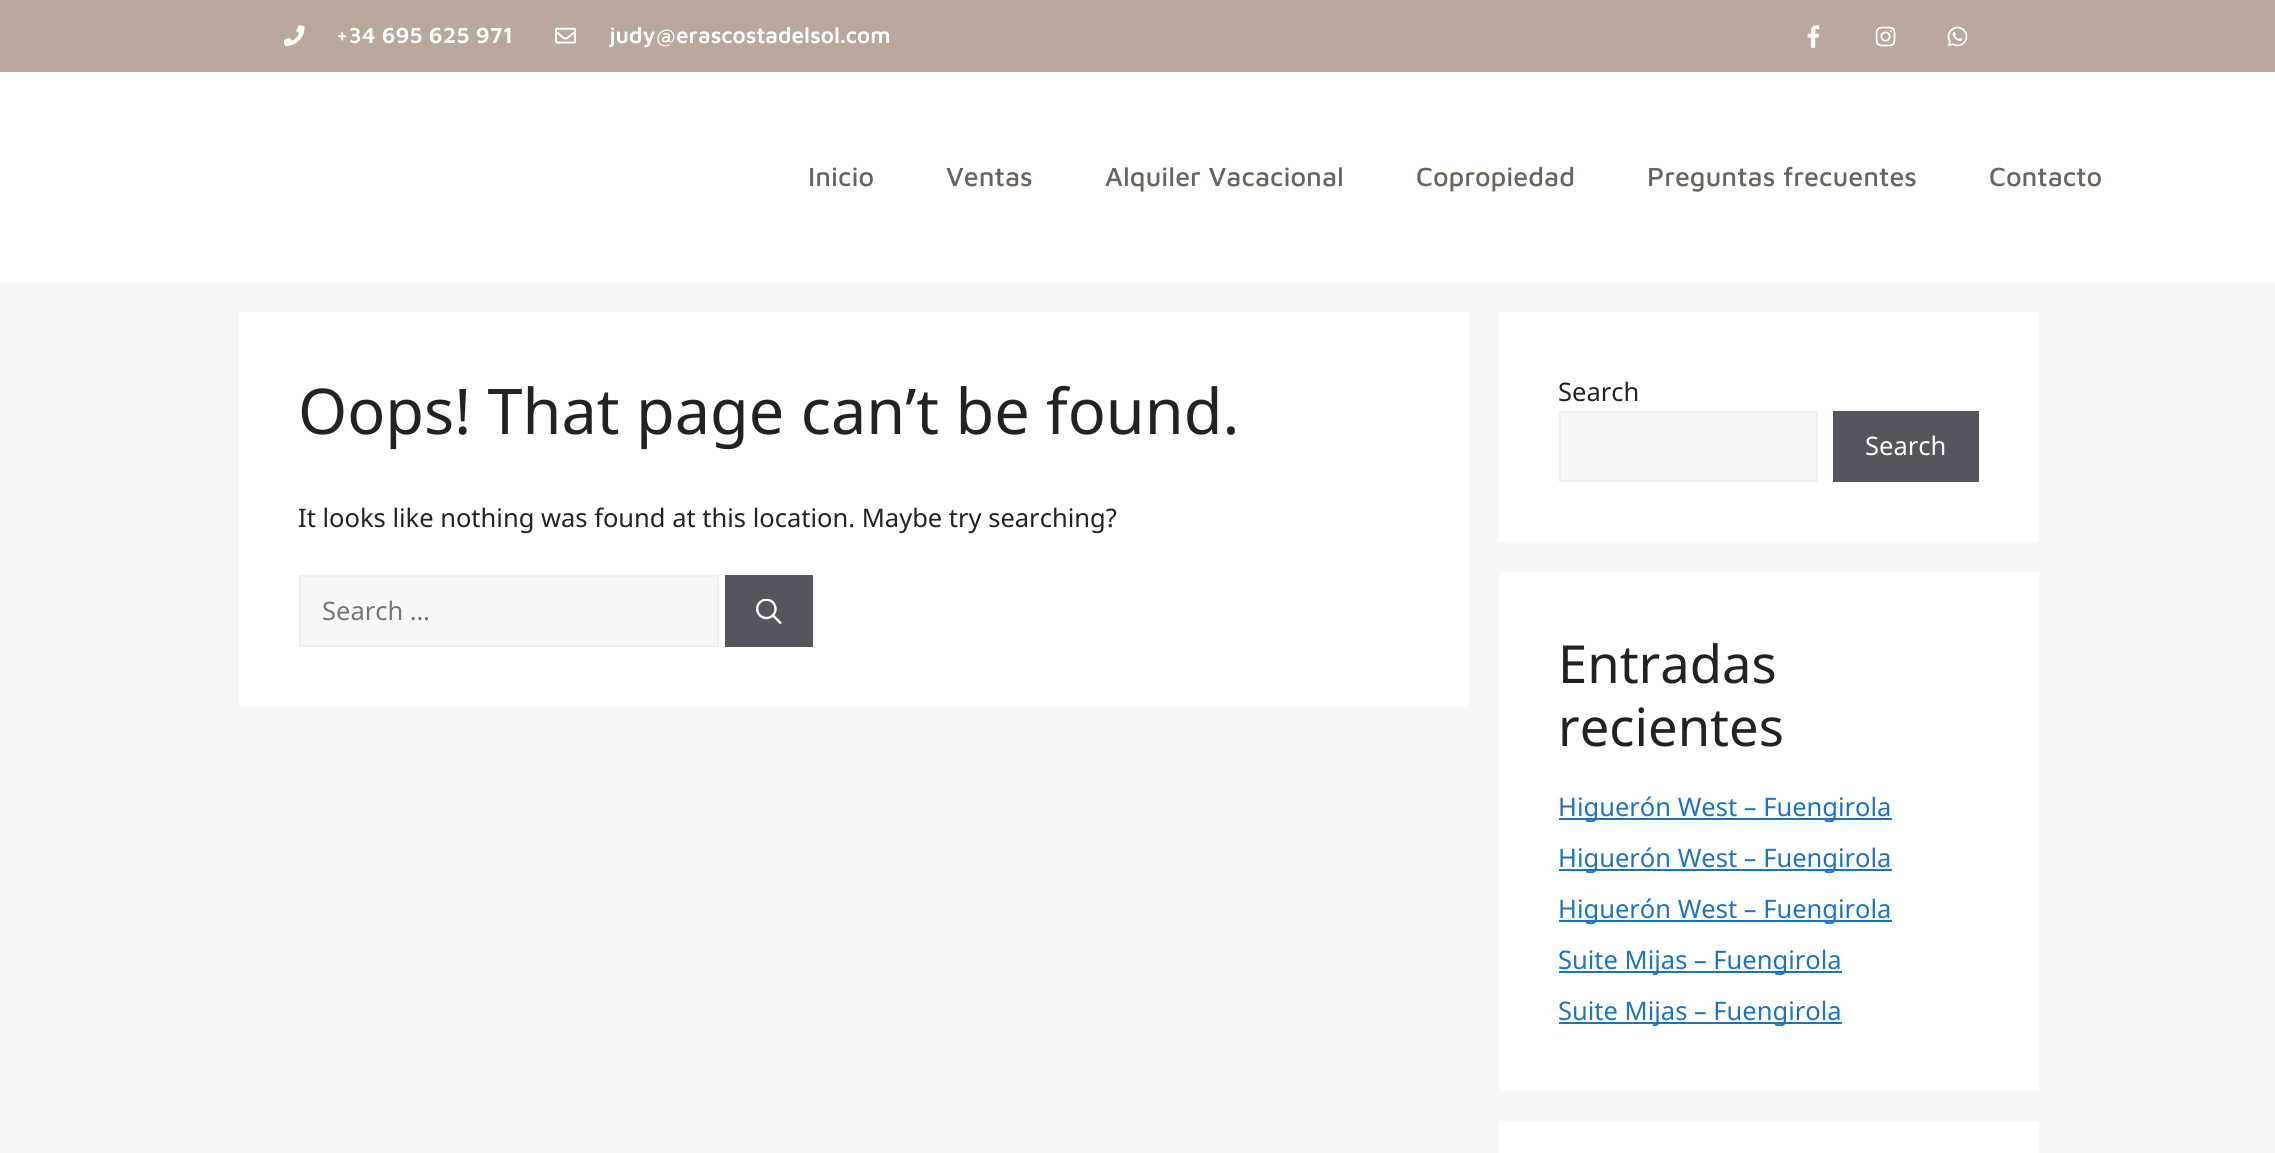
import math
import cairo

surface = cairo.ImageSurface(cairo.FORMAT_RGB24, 2275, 1153)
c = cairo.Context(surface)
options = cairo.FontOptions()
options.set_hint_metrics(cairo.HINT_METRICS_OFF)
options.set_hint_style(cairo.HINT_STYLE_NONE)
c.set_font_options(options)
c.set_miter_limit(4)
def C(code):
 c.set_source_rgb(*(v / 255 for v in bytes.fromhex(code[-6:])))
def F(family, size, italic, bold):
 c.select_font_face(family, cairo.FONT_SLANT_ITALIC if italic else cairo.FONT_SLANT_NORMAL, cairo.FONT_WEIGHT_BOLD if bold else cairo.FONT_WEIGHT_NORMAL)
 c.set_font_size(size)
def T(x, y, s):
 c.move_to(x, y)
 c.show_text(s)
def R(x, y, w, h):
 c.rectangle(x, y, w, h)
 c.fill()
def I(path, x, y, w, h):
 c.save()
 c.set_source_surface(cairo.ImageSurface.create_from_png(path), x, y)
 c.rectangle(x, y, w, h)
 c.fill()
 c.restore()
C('f7f8f9')
c.paint()
C('baa89c')
R(0,0,2275,72)
I('1.png',284,25,21,22)
F('Maven Pro SemiBold',22.5,0,0)
C('ffffff')
T(336,43,'+34 695 625 971')
I('2.png',555,27,21,17)
T(609,43,'judy@erascostadelsol.com')
I('3.png',1807,25,13,23)
I('4.png',1875,26,21,21)
I('5.png',1947,26,21,21)
R(0,72,2275,210)
F('Maven Pro Medium',27,0,0)
C('6c625b')
T(808,186,'Inicio')
T(946,186,'Ventas')
T(1105,186,'Alquiler Vacacional')
T(1416,186,'Copropiedad')
T(1647,186,'Preguntas frecuentes')
T(1989,186,'Contacto')
C('ffffff')
R(239,312,1230,395)
F('Noto Sans',63,0,0)
C('222222')
T(298,434,'Oops! That page can’t be found.')
F('Noto Sans',25.5,0,0)
T(298,527,'It looks like nothing was found at this location. Maybe try searching?')
C('f7f8f9')
c.rectangle(300,576,418,70)
c.fill_preserve()
C('f0f0f0')
c.stroke()
C('757575')
T(322,620,'Search …')
C('55555e')
R(725,575,88,72)
I('6.png',756,599,26,25)
C('ffffff')
R(1499,312,540,230)
C('222222')
T(1558,401,'Search')
C('f7f8f9')
c.rectangle(1560,412,257,69)
c.fill_preserve()
C('f0f0f0')
c.stroke()
C('55555e')
R(1833,411,146,71)
C('ffffff')
T(1865,455,'Search')
R(1499,572,540,519)
F('Noto Sans',52.5,0,0)
C('222222')
T(1558,683,'Entradas')
T(1558,746,'recientes')
C('1e73be')
R(1559,818,333,2)
F('Noto Sans',25.5,0,0)
T(1558,816,'Higuerón West – Fuengirola')
R(1559,869,333,2)
T(1558,867,'Higuerón West – Fuengirola')
R(1559,920,333,2)
T(1558,918,'Higuerón West – Fuengirola')
R(1559,971,283,2)
T(1558,969,'Suite Mijas – Fuengirola')
R(1559,1022,283,2)
T(1558,1020,'Suite Mijas – Fuengirola')
C('ffffff')
R(1499,1121,540,32)
surface.write_to_png('o.png')
